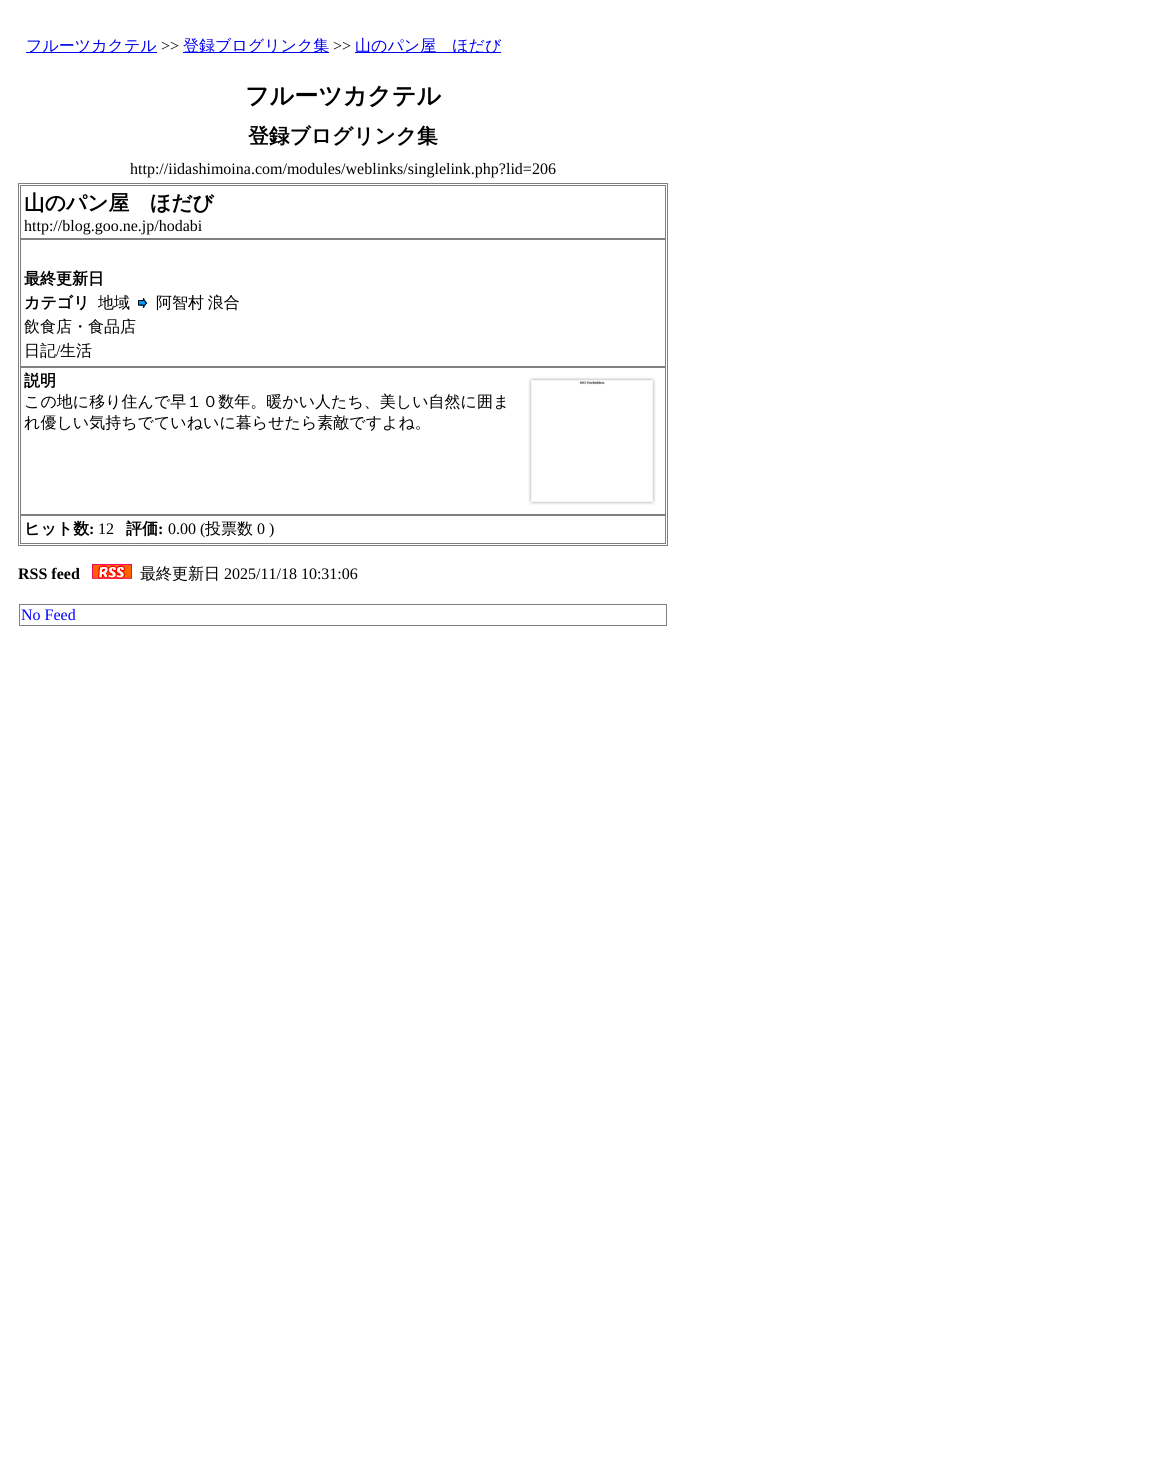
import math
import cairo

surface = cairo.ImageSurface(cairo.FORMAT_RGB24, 1161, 1484)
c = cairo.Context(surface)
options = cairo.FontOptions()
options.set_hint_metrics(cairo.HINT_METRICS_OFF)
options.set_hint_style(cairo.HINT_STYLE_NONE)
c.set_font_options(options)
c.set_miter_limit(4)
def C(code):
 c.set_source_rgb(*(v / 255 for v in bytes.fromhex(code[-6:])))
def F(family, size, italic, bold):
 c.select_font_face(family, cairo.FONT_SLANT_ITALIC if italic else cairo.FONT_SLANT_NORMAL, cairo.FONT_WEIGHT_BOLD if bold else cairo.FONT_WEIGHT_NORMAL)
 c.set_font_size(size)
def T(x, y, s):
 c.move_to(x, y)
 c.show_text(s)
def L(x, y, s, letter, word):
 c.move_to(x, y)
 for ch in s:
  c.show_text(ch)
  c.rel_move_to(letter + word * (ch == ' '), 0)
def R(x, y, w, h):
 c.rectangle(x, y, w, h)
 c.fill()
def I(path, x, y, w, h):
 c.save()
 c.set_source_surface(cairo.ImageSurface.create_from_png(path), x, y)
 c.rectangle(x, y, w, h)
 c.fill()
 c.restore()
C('ffffff')
c.paint()
C('0000ee')
R(26,52,131,1)
F('WenQuanYi Zen Hei Medium',16,0,0)
T(26,51,'フルーツカクテル')
F('Liberation Serif',16,0,0)
C('000000')
T(161,51,'>>')
C('0000ee')
R(183,52,146,1)
F('WenQuanYi Zen Hei Medium',16,0,0)
T(183,51,'登録ブログリンク集')
F('Liberation Serif',16,0,0)
C('000000')
T(333,51,'>>')
C('0000ee')
R(355,52,146,1)
F('WenQuanYi Zen Hei Medium',16,0,0)
T(355,51,'山のパン屋　ほだび')
F('WenQuanYi Zen Hei',24,0,1)
C('000000')
T(245,104,'フルーツカクテル')
F('WenQuanYi Zen Hei',20.75,0,1)
T(248,143,'登録ブログリンク集')
F('Liberation Serif',16,0,0)
T(130,174,'http://iidashimoina.com/modules/weblinks/singlelink.php?lid=206')
c.rectangle(18.5,183.5,649,362)
C('808080')
c.set_line_width(1)
c.stroke()
c.rectangle(20.5,185.5,645,53)
c.stroke()
F('WenQuanYi Zen Hei',20.75,0,1)
C('000000')
T(24,210,'山のパン屋　ほだび')
F('Liberation Serif',16,0,0)
T(24,231,'http://blog.goo.ne.jp/hodabi')
c.rectangle(20.5,239.5,645,127)
C('808080')
c.stroke()
F('WenQuanYi Zen Hei',16,0,1)
C('000000')
T(24,284,'最終更新日')
T(24,308,'カテゴリ')
F('WenQuanYi Zen Hei Medium',16,0,0)
T(98,308,'地域')
I('1.png',138,298,10,10)
L(156,308,'阿智村 浪合',0,-1)
T(24,332,'飲食店・食品店')
T(24,356,'日記')
F('Liberation Serif',16,0,0)
T(56,356,'/')
F('WenQuanYi Zen Hei Medium',16,0,0)
T(60,356,'生活')
c.rectangle(20.5,367.5,645,147)
C('808080')
c.stroke()
F('WenQuanYi Zen Hei',16,0,1)
C('000000')
T(24,386,'説明')
I('2.png',528,377,128,128)
F('WenQuanYi Zen Hei Medium',16,0,0)
T(24,407,'この地に移り住んで早１０数年。暖かい人たち、美しい自然に囲ま')
T(24,428,'れ優しい気持ちでていねいに暮らせたら素敵ですよね。')
c.rectangle(20.5,515.5,645,28)
C('808080')
c.stroke()
F('WenQuanYi Zen Hei',16,0,1)
C('000000')
T(24,534,'ヒット数')
F('Liberation Serif',16,0,1)
T(89,534,':')
F('Liberation Serif',16,0,0)
T(98,534,'12')
F('WenQuanYi Zen Hei',16,0,1)
T(126,534,'評価')
F('Liberation Serif',16,0,1)
T(158,534,':')
F('Liberation Serif',16,0,0)
T(168,534,'0.00 (')
F('WenQuanYi Zen Hei Medium',16,0,0)
T(205,534,'投票数')
F('Liberation Serif',16,0,0)
T(257,534,'0 )')
F('Liberation Serif',16,0,1)
T(18,579,'RSS feed')
I('3.png',92,564,40,15)
F('WenQuanYi Zen Hei Medium',16,0,0)
T(140,579,'最終更新日')
F('Liberation Serif',16,0,0)
T(224,579,'2025/11/18 10:31:06')
c.rectangle(19.5,604.5,647,21)
C('808080')
c.stroke()
C('0000ff')
T(21,620,'No Feed')
surface.write_to_png('o.png')
